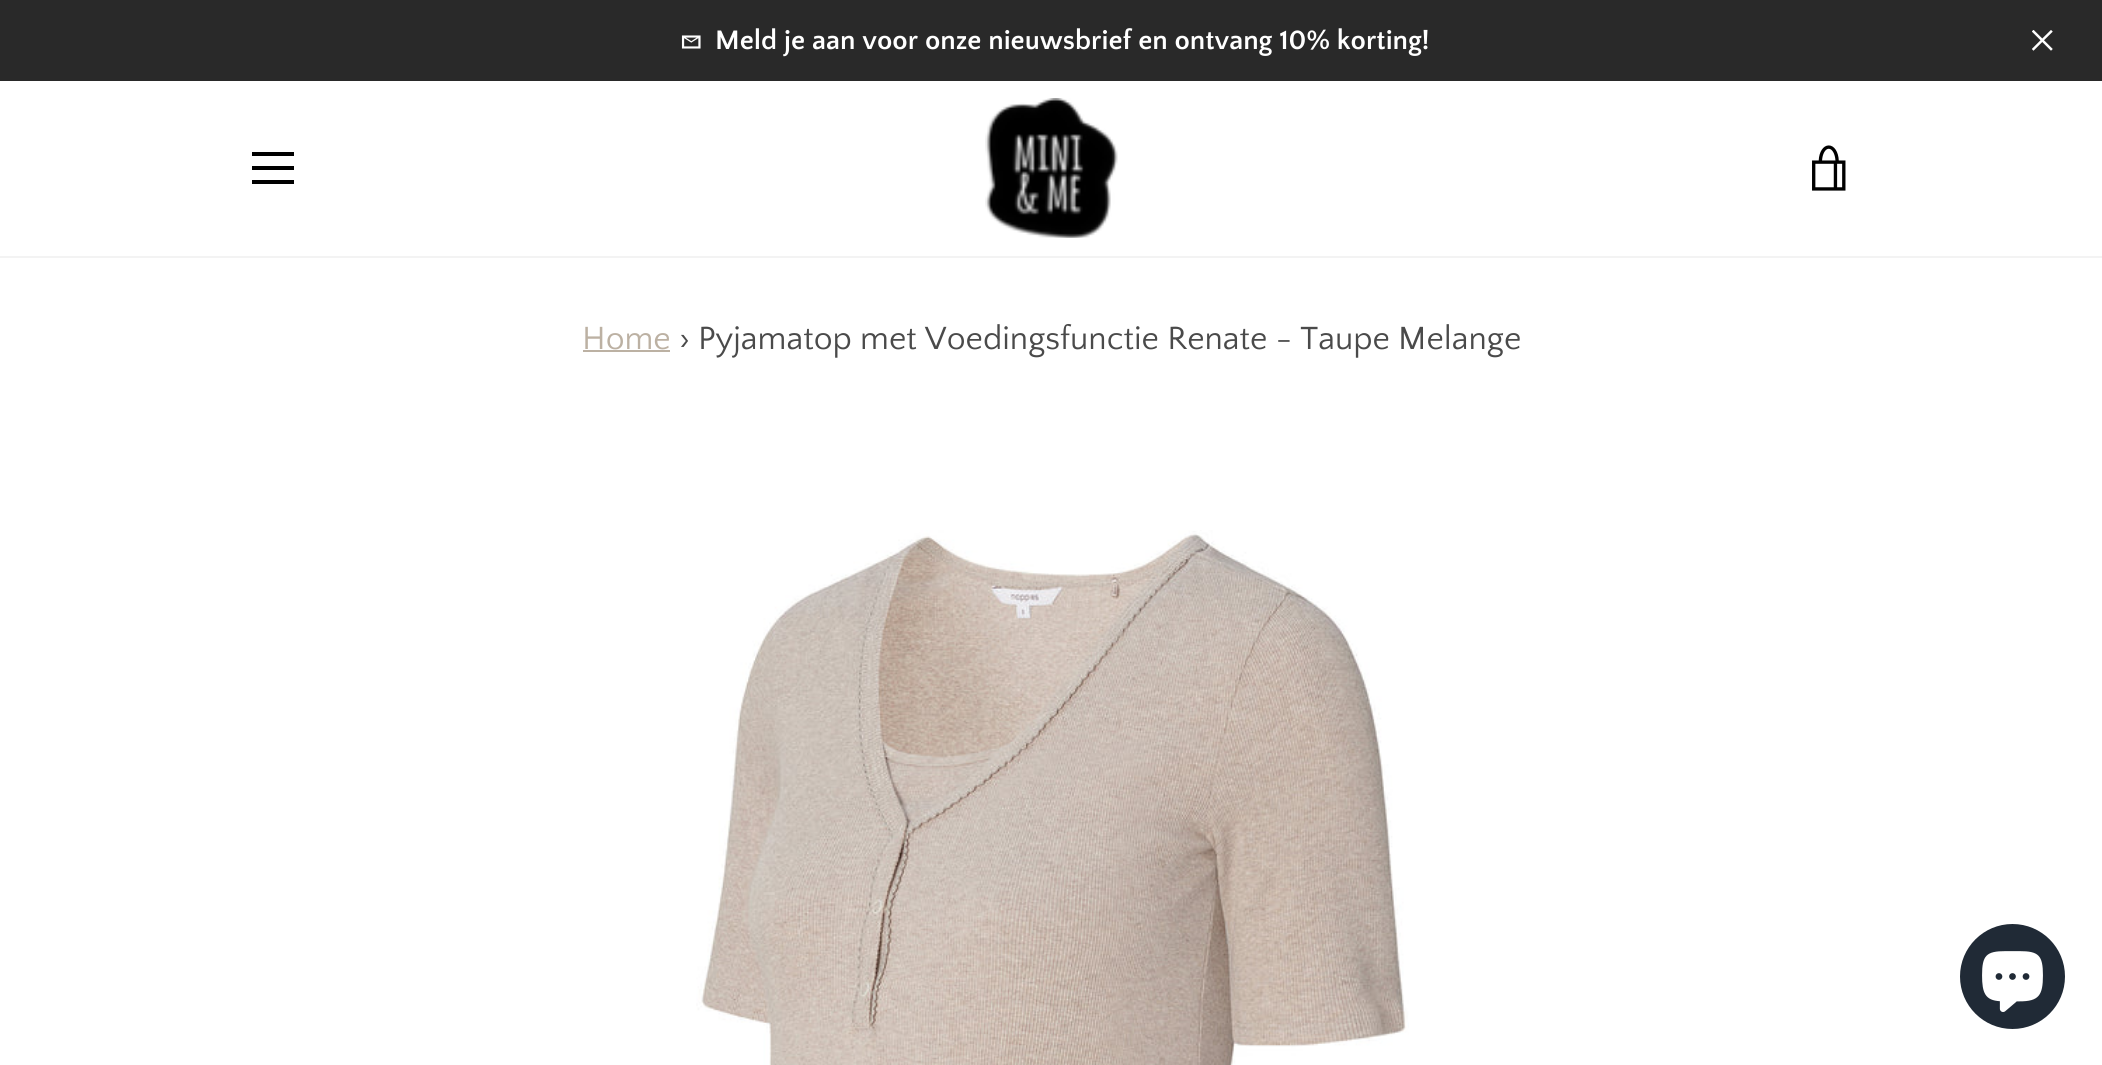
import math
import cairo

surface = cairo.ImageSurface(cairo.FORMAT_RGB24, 2102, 1065)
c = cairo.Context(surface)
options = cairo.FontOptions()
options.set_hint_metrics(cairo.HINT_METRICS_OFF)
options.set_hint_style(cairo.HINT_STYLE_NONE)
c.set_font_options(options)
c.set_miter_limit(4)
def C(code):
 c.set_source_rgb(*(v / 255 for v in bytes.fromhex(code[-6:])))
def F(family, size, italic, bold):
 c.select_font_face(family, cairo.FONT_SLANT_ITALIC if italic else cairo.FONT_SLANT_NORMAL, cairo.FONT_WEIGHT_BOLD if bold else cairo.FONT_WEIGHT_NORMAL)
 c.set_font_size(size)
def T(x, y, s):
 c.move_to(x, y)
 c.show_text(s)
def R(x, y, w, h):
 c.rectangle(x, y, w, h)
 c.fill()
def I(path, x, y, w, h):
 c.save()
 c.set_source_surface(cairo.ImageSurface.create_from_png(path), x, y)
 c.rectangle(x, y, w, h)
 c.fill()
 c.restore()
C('ffffff')
c.paint()
C('f3f3f3')
R(0,256,2102,2)
C('292929')
R(0,0,2102,81)
I('1.png',681,35,20,14)
F('Quattrocento Sans',28,0,1)
C('ffffff')
T(715,49,'Meld je aan voor onze nieuwsbrief en ontvang 10% korting!')
I('2.png',2032,30,21,21)
C('000000')
R(252,152,42,4)
R(252,166,42,4)
R(252,180,42,4)
I('3.png',985,98,133,140)
I('4.png',1812,145,34,46)
F('Quattrocento Sans',33.6,0,0)
C('bcb1a3')
T(582,349,'Home')
R(583,350,87,2)
C('4a4a4a')
T(679,349,'› Pyjamatop met Voedingsfunctie Renate - Taupe Melange')
I('5.png',696,530,713,535)
C('202a36')
c.arc(2012.5,976.5,52.5,0,2 * math.pi)
c.fill()
I('6.png',1982,951,61,61)
surface.write_to_png('o.png')
